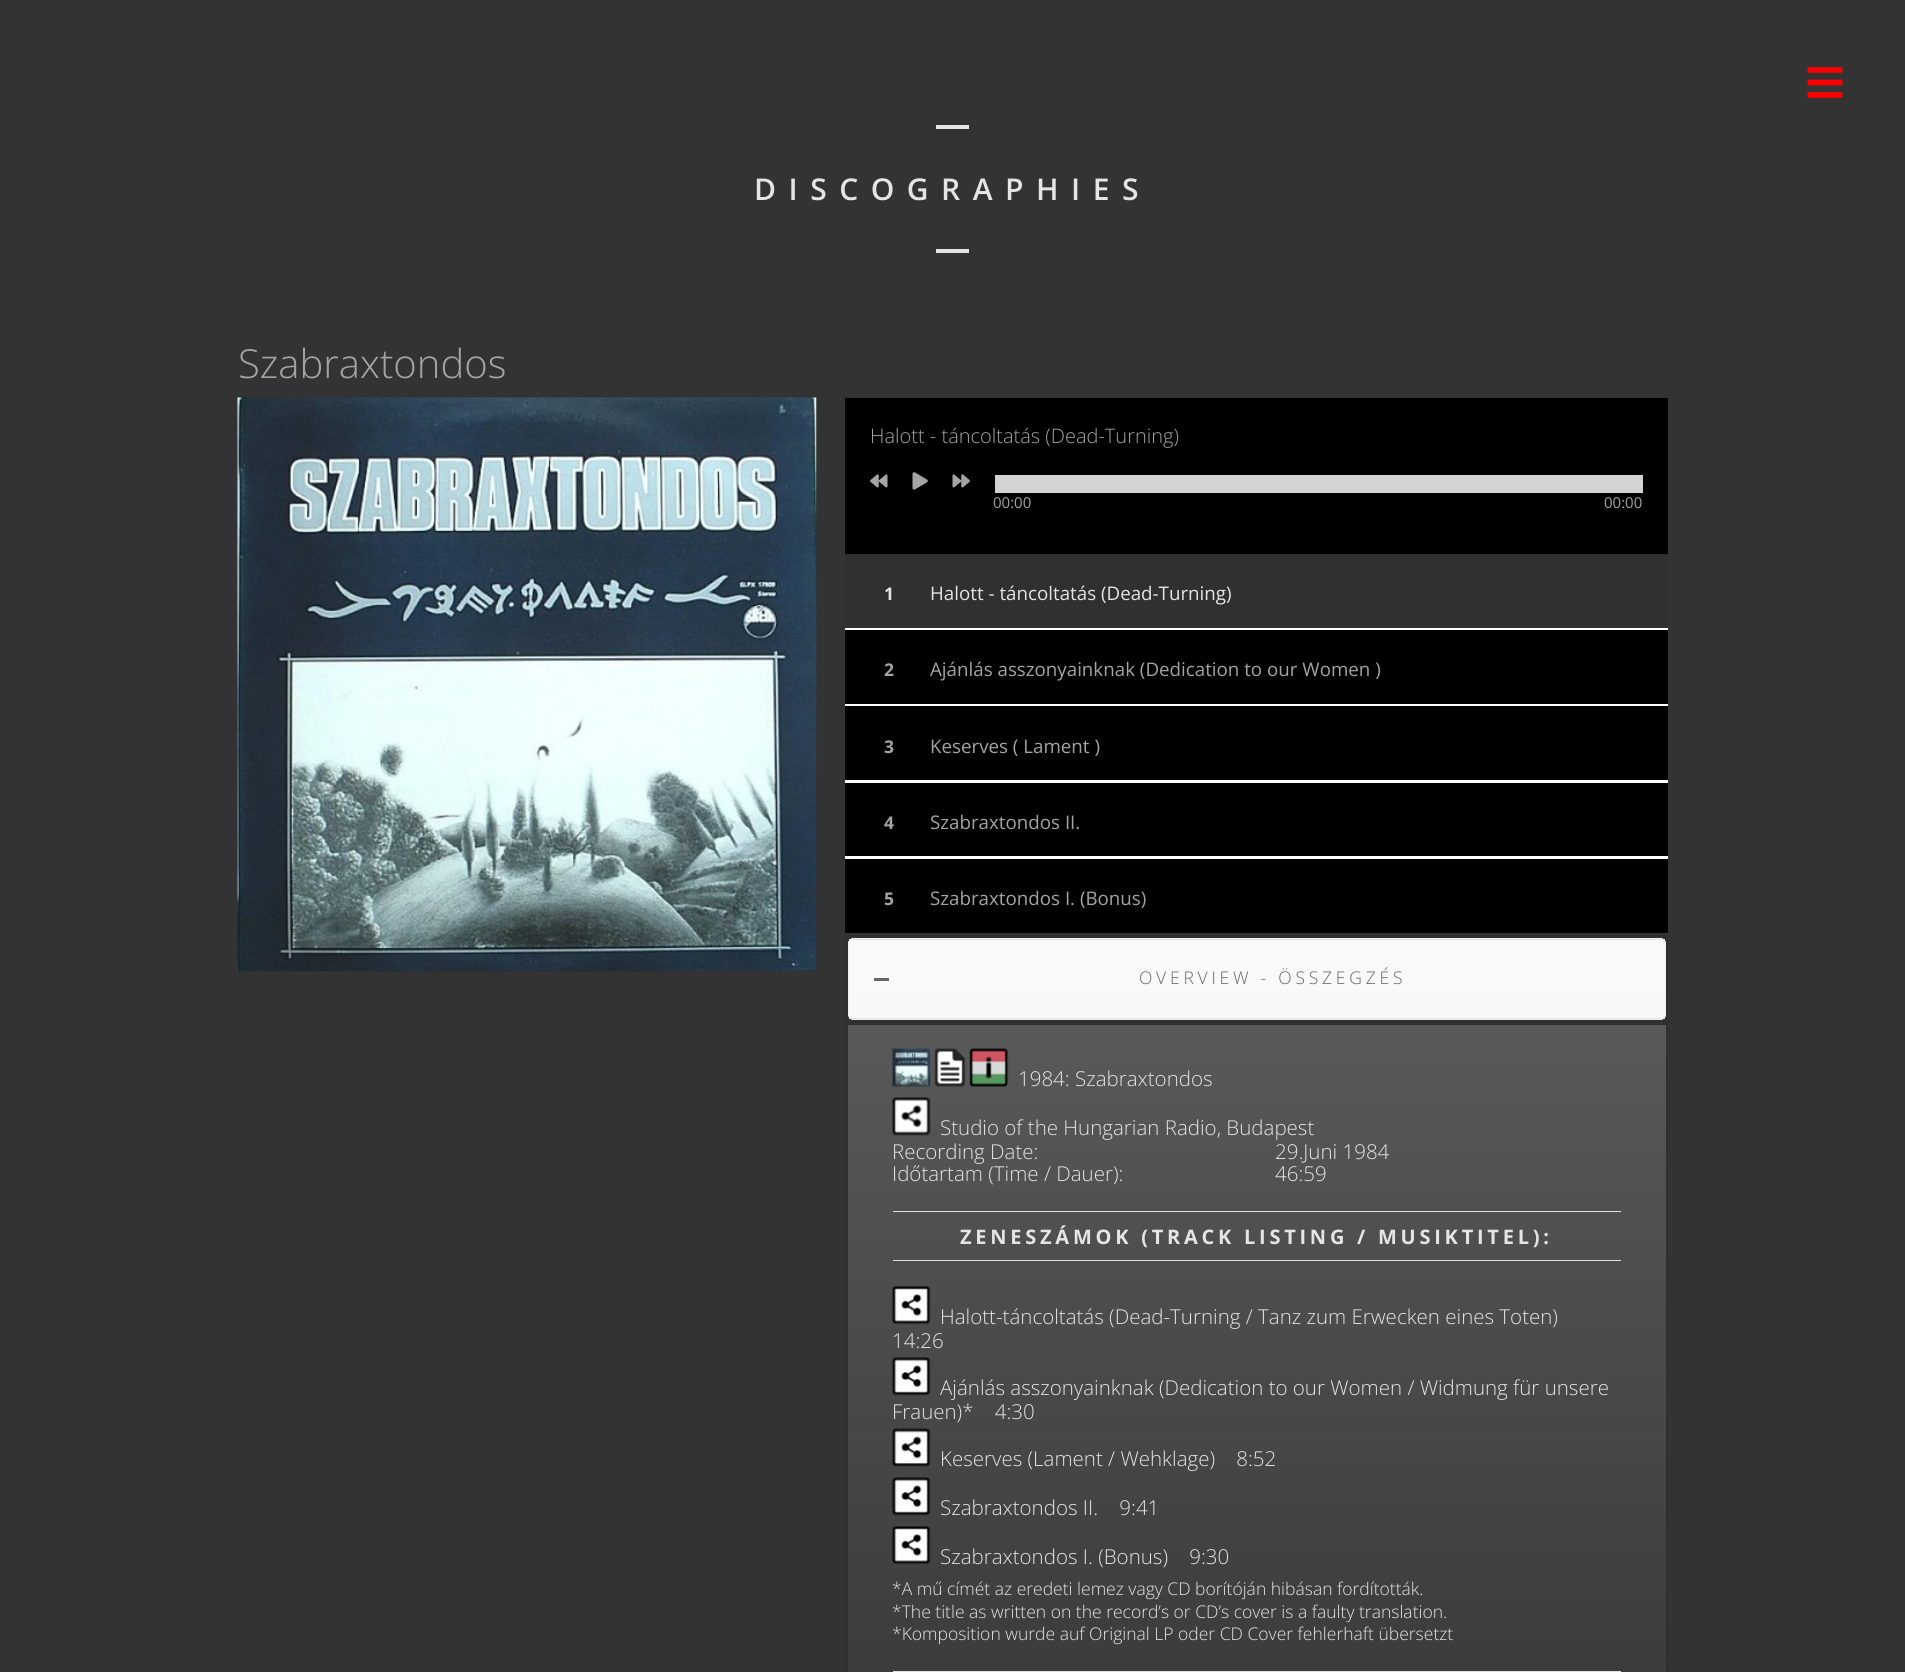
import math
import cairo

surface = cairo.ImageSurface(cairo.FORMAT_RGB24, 1905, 1672)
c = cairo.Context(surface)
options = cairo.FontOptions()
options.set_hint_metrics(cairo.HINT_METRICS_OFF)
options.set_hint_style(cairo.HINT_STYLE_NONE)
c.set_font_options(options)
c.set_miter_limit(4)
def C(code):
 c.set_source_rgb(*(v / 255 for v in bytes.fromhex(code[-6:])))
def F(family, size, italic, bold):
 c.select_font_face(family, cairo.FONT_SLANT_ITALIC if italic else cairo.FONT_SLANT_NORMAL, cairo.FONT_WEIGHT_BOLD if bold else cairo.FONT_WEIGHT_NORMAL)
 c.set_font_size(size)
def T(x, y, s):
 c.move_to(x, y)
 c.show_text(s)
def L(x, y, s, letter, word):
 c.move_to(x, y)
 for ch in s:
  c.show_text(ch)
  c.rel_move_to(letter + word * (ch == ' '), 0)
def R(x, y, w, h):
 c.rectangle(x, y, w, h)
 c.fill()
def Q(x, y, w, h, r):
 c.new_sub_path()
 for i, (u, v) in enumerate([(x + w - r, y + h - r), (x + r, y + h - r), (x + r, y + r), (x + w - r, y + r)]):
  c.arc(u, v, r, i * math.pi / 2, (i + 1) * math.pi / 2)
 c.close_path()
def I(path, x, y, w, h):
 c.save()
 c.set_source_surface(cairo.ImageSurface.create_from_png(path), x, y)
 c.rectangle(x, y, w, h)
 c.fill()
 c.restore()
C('333333')
c.paint()
I('1.png',1807,67,36,31)
C('e5e5e5')
R(936,125,33,4)
F('Open Sans SemiBold',30,0,0)
L(754,200,'DISCOGRAPHIES',12.5,0)
R(936,249,33,4)
F('Open Sans Light',40,0,0)
C('a4a4a4')
T(238,378,'Szabraxtondos')
I('2.png',237,397,580,575)
C('000000')
R(845,398,823,535)
F('Open Sans Light',20,0,0)
C('a4a4a4')
T(870,443,'Halott - táncoltatás (Dead-Turning)')
I('3.png',870,474,18,14)
I('4.png',912,472,16,18)
I('5.png',952,474,18,14)
C('d3d3d3')
R(995,475,648,18)
F('Open Sans',15,0,0)
C('a4a4a4')
T(993,508,'00:00')
T(1604,508,'00:00')
C('303030')
R(845,554,823,74)
C('ffffff')
R(845,628,823,2)
F('Open Sans',17.5,0,1)
C('e5e5e5')
T(884,600,'1')
F('Open Sans',18.75,0,0)
T(930,600,'Halott - táncoltatás (Dead-Turning)')
C('ffffff')
R(845,704,823,2)
F('Open Sans',17.5,0,1)
C('a4a4a4')
T(884,676,'2')
F('Open Sans',18.75,0,0)
T(930,676,'Ajánlás asszonyainknak (Dedication to our Women )')
C('ffffff')
R(845,780,823,3)
F('Open Sans',17.5,0,1)
C('a4a4a4')
T(884,753,'3')
F('Open Sans',18.75,0,0)
T(930,753,'Keserves ( Lament )')
C('ffffff')
R(845,856,823,3)
F('Open Sans',17.5,0,1)
C('a4a4a4')
T(884,829,'4')
F('Open Sans',18.75,0,0)
T(930,829,'Szabraxtondos II.')
F('Open Sans',17.5,0,1)
T(884,905,'5')
F('Open Sans',18.75,0,0)
T(930,905,'Szabraxtondos I. (Bonus)')
C('303030')
R(845,935,823,737)
C('f8f8f8')
Q(848,938,818,82,6)
c.fill()
c.save()
Q(848,938,818,82,6)
c.clip()
gradient = cairo.LinearGradient(1257,939,1257,1019)
gradient.add_color_stop_rgba(0,1,1,1,.2)
gradient.add_color_stop_rgba(1,1,1,1,.01)
c.set_source(gradient)
R(848,940,818,74)
c.restore()
Q(848.5,938.5,817,81,5.5)
C('f0f0f0')
c.set_line_width(1)
c.stroke()
C('e2e2e2')
R(849,939,816,1)
R(849,1018,816,1)
C('666666')
R(874,978,15,3)
F('Open Sans Light',17.5,0,0)
L(1139,984,'OVERVIEW - ÖSSZEGZÉS',3.75,0)
gradient = cairo.LinearGradient(1257,1025,1257,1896)
gradient.add_color_stop_rgba(0,0.349,0.349,0.349,1)
gradient.add_color_stop_rgba(1,0.196,0.196,0.196,1)
c.set_source(gradient)
R(848,1025,818,647)
I('6.png',892,1048,39,39)
I('7.png',934,1048,32,39)
I('8.png',969,1048,40,39)
F('Open Sans Light',20.5,0,0)
C('e5e5e5')
T(1018,1086,'1984: Szabraxtondos')
I('9.png',892,1097,39,39)
T(940,1135,'Studio of the Hungarian Radio, Budapest')
T(892,1159,'Recording Date:')
T(1275,1159,'29.Juni 1984')
T(892,1181,'Időtartam (Time / Dauer):')
T(1275,1181,'46:59')
C('e2e2e2')
R(893,1211,728,1)
R(893,1260,728,1)
F('Open Sans',20,0,1)
C('e5e5e5')
L(960,1244,'ZENESZÁMOK (TRACK LISTING / MUSIKTITEL):',3.75,0)
I('10.png',892,1286,39,39)
F('Open Sans Light',20.5,0,0)
T(940,1324,'Halott-táncoltatás (Dead-Turning / Tanz zum Erwecken eines Toten)')
T(892,1348,'14:26')
I('11.png',892,1357,39,39)
T(940,1395,'Ajánlás asszonyainknak (Dedication to our Women / Widmung für unsere')
T(892,1419,'Frauen)*    4:30')
I('12.png',892,1428,39,39)
T(940,1466,'Keserves (Lament / Wehklage)    8:52')
I('13.png',892,1477,39,39)
T(940,1515,'Szabraxtondos II.    9:41')
I('14.png',892,1526,39,38)
T(940,1564,'Szabraxtondos I. (Bonus)    9:30')
F('Open Sans Light',17.5,0,0)
T(892,1595,'*A mű címét az eredeti lemez vagy CD borítóján hibásan fordították.')
T(892,1618,'*The title as written on the record’s or CD’s cover is a faulty translation.')
T(892,1640,'*Komposition wurde auf Original LP oder CD Cover fehlerhaft übersetzt')
C('e2e2e2')
R(893,1671,728,1)
surface.write_to_png('o.png')
